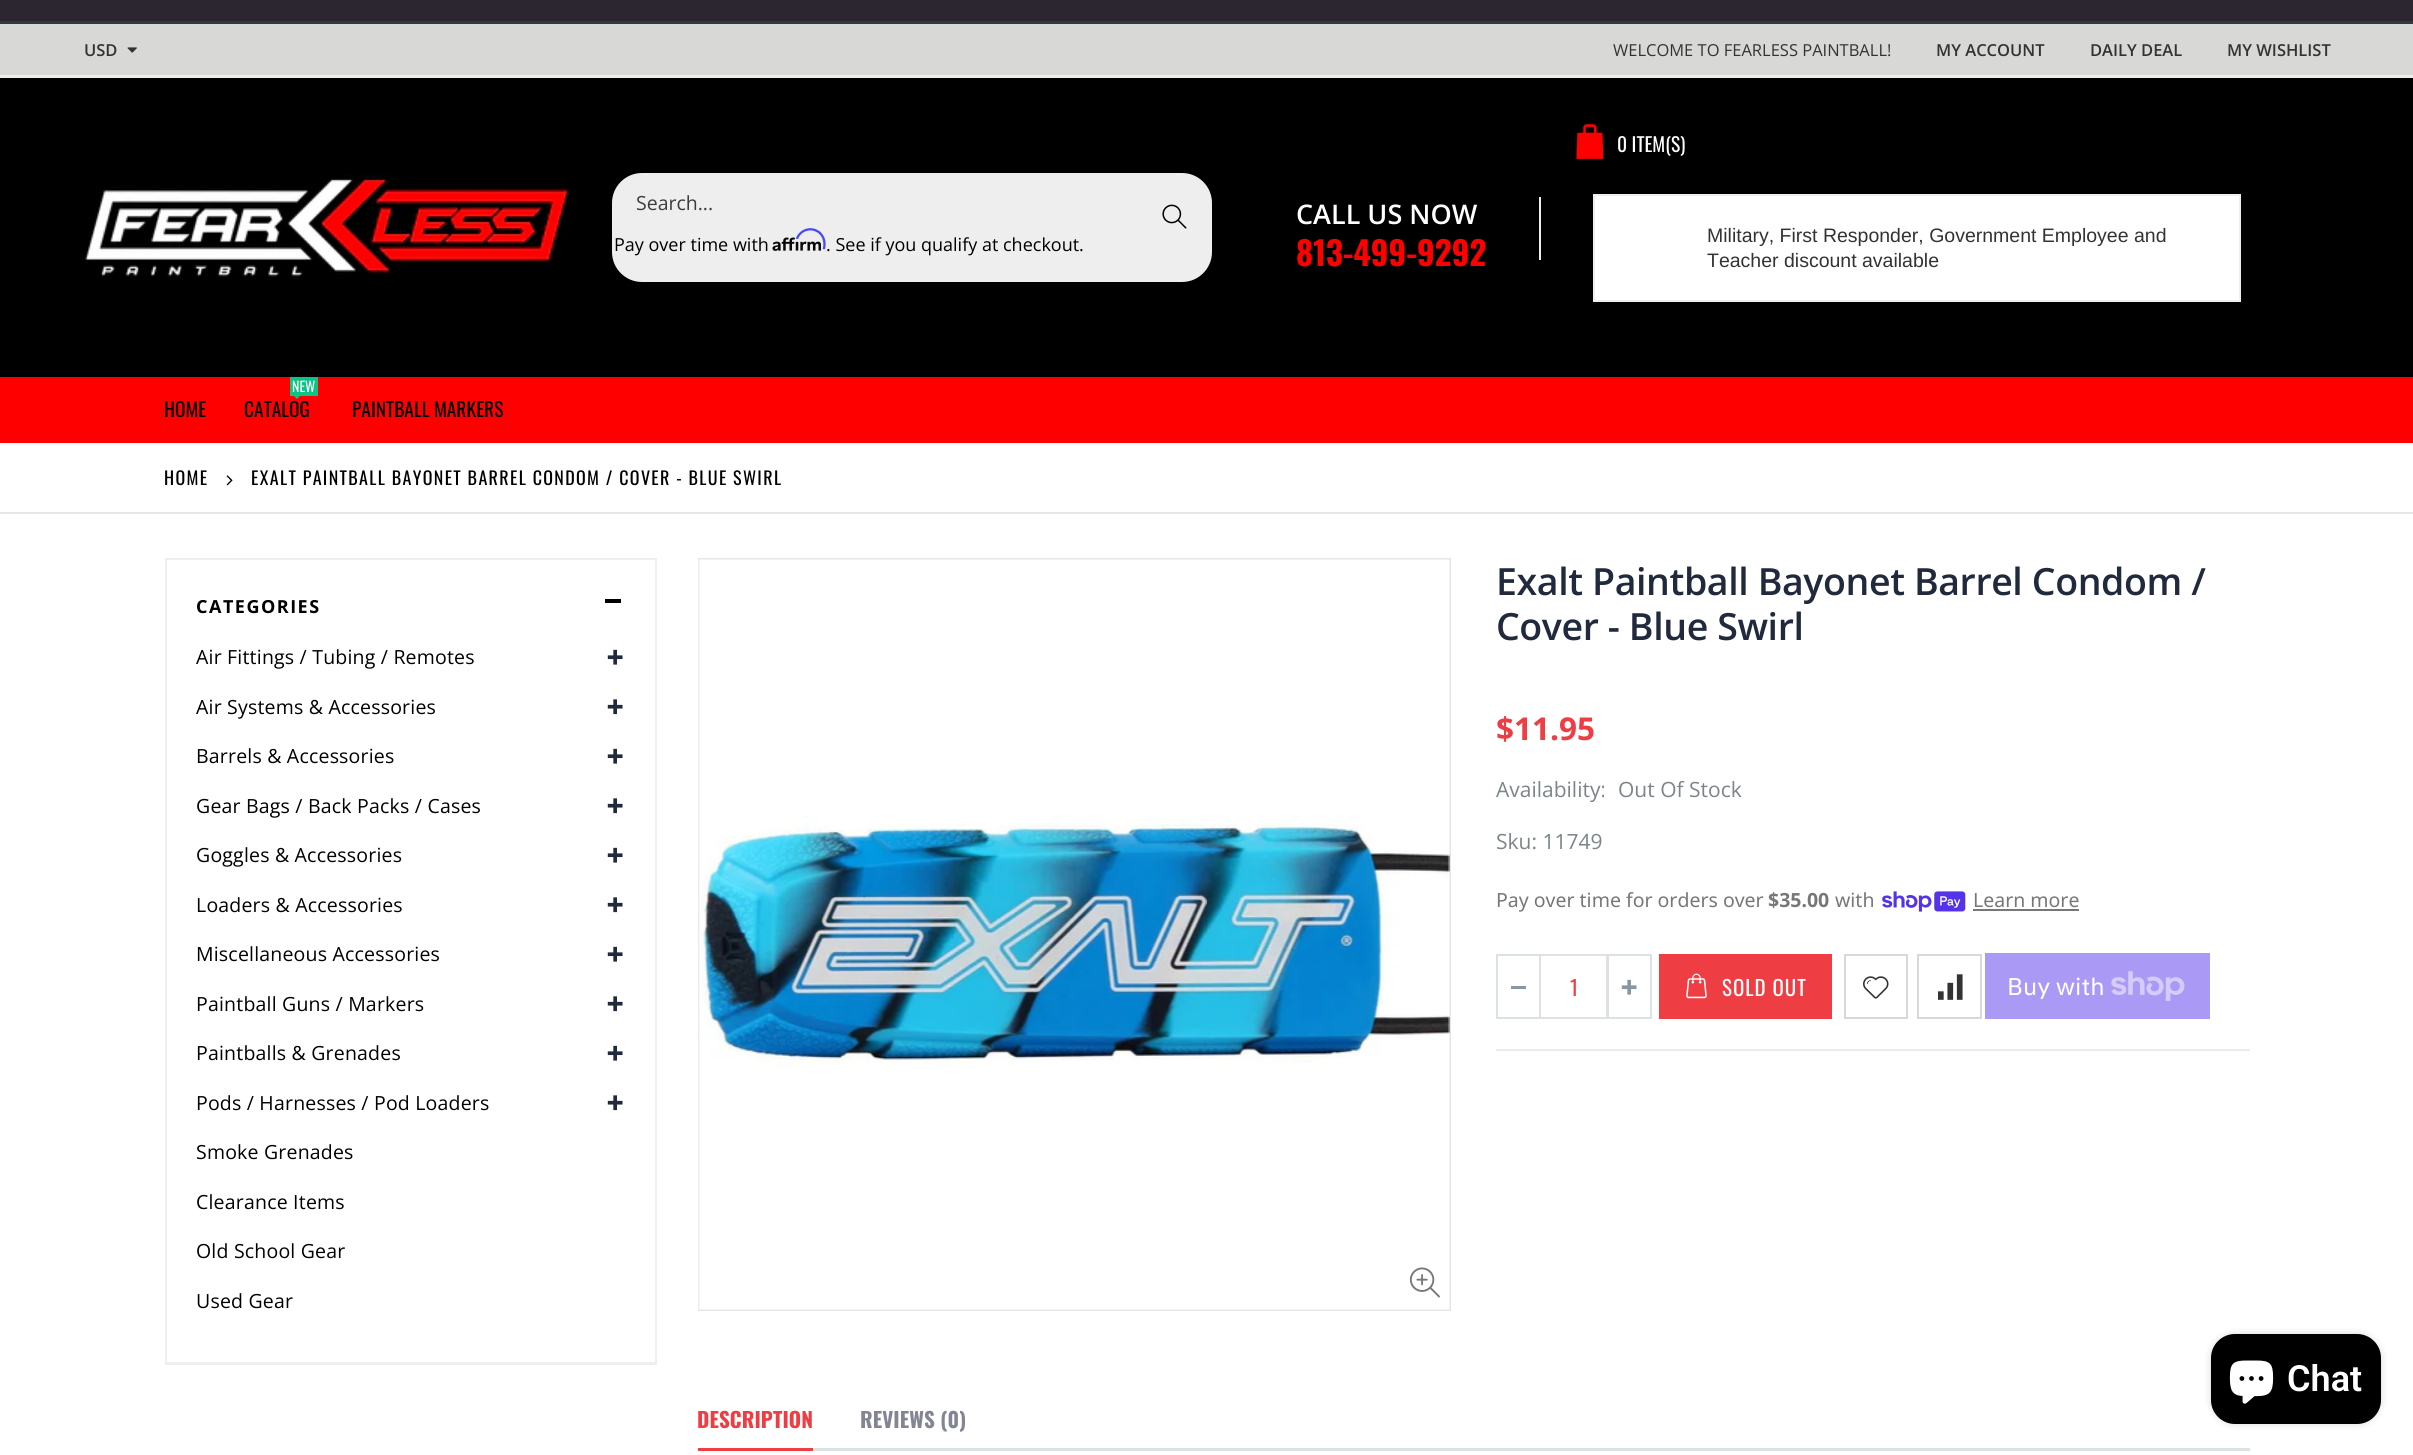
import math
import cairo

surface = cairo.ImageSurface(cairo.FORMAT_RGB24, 2413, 1455)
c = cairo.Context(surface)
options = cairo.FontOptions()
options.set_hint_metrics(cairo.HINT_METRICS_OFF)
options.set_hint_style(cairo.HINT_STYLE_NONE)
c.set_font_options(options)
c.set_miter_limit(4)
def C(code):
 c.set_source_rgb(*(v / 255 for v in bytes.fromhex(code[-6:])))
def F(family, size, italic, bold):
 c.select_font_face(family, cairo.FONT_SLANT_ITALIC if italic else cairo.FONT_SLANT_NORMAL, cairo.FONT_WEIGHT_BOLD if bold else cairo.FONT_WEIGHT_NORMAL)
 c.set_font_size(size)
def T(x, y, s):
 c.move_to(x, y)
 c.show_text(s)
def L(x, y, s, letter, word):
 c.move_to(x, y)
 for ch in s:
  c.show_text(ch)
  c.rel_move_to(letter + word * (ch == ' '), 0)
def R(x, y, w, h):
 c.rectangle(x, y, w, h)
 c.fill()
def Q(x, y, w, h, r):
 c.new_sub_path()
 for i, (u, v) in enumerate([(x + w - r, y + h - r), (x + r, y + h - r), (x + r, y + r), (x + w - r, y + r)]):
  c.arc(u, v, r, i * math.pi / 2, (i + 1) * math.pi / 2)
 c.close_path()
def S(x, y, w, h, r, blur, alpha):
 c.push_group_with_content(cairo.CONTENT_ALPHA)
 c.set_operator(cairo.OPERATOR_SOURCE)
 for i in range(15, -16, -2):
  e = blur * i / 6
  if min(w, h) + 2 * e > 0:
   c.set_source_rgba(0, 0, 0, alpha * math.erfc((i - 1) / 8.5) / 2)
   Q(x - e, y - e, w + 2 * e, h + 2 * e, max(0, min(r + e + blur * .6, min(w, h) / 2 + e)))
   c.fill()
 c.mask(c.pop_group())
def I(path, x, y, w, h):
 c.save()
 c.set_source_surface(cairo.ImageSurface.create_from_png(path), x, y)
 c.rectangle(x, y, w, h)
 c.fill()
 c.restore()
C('ffffff')
c.paint()
C('2b262f')
R(0,0,2413,21)
C('000000')
R(0,78,2413,299)
C('2f3946')
R(0,21,2413,3)
C('d8d8d6')
R(0,24,2413,51)
C('eeeeee')
R(0,75,2413,3)
F('Open Sans SemiBold',16.5,0,0)
C('333333')
T(84,56,'USD')
I('1.png',127,47,10,6)
F('Open Sans',16.5,0,0)
T(1613,56,'WELCOME TO FEARLESS PAINTBALL!')
F('Open Sans SemiBold',16.5,0,0)
T(1936,56,'MY ACCOUNT')
T(2090,56,'DAILY DEAL')
T(2227,56,'MY WISHLIST')
I('2.png',85,174,485,105)
C('eeeeee')
Q(612,173,600,109,30)
c.fill()
F('Open Sans',19.5,0,0)
C('3c3c3c')
T(636,210,'Search...')
I('3.png',1162,204,25,25)
F('Open Sans',18,0,0)
C('000000')
T(614,251,'Pay over time with')
I('5.png',772,237,49,14)
I('4.png',795,228,31,22)
T(826,251,'. See if you qualify at checkout.')
C('eeeeee')
R(1539,197,2,63)
F('Open Sans SemiBold',27,0,0)
C('ffffff')
T(1296,224,'CALL US NOW')
F('Oswald',33,0,1)
C('ff0000')
T(1296,266,'813-499-9292')
I('6.png',1576,124,28,35)
F('Oswald',19.5,0,0)
C('ffffff')
T(1617,152,'0 ITEM(S)')
c.rectangle(1594,195,646,106)
c.fill_preserve()
C('eeeeee')
c.stroke()
F('Liberation Sans',19.5,0,0)
C('333333')
T(1707,242,'Military, First Responder, Government Employee and')
T(1707,267,'Teacher discount available')
C('ff0000')
R(0,377,2413,66)
F('Oswald',19.5,0,0)
C('000000')
T(164,417,'HOME')
C('0cc485')
R(290,377,28,19)
F('Oswald',14,0,0)
C('ffffff')
T(292,392,'NEW')
C('0cc485')
c.new_path()
c.move_to(294,396)
c.line_to(300,396)
c.line_to(297,399)
c.close_path()
c.fill()
F('Oswald',19.5,0,0)
C('000000')
T(244,417,'CATALOG')
T(352,417,'PAINTBALL MARKERS')
C('e6e6e6')
R(0,512,2413,2)
F('Oswald',18,0,0)
C('000000')
L(164,485,'HOME',1.35,0)
I('7.png',226,475,7,11)
L(251,485,'EXALT PAINTBALL BAYONET BARREL CONDOM / COVER - BLUE SWIRL',1.35,0)
c.rectangle(166,559,490,805)
C('efefef')
c.stroke()
F('Open Sans',18,0,1)
C('000000')
L(196,613,'CATEGORIES',1.5,0)
R(605,599,16,4)
C('efefef')
R(167,1362,489,1)
F('Open Sans',19.5,0,0)
C('000000')
L(196,664,'Air Fittings / Tubing / Remotes',.2,0)
I('8.png',607,649,16,16)
L(196,714,'Air Systems & Accessories',.2,0)
I('9.png',607,699,16,16)
L(196,763,'Barrels & Accessories',.2,0)
I('8.png',607,748,16,16)
L(196,813,'Gear Bags / Back Packs / Cases',.2,0)
I('9.png',607,798,16,16)
L(196,862,'Goggles & Accessories',.2,0)
I('8.png',607,847,16,16)
L(196,912,'Loaders & Accessories',.2,0)
I('9.png',607,897,16,16)
L(196,961,'Miscellaneous Accessories',.2,0)
I('8.png',607,946,16,16)
L(196,1011,'Paintball Guns / Markers',.2,0)
I('9.png',607,996,16,16)
L(196,1060,'Paintballs & Grenades',.2,0)
I('8.png',607,1045,16,16)
L(196,1110,'Pods / Harnesses / Pod Loaders',.2,0)
I('9.png',607,1095,16,16)
L(196,1159,'Smoke Grenades',.2,0)
L(196,1209,'Clearance Items',.2,0)
L(196,1258,'Old School Gear',.2,0)
L(196,1308,'Used Gear',.2,0)
c.rectangle(699,559,751,751)
C('e6e6e6')
c.stroke()
I('10.png',698,559,752,751)
I('11.png',1409,1267,31,31)
F('Open Sans SemiBold',37.5,0,0)
C('21293c')
L(1496,595,'Exalt Paintball Bayonet Barrel Condom /',-.4,0)
L(1496,640,'Cover - Blue Swirl',-.4,0)
F('Open Sans',31.5,0,1)
C('ee3d43')
T(1496,740,'$11.95')
F('Open Sans',21,0,0)
C('7b858a')
T(1496,797,'Availability:')
T(1618,797,'Out Of Stock')
T(1496,849,'Sku: 11749')
F('Noto Sans',19.5,0,0)
C('777777')
T(1496,907,'Pay over time for orders over')
F('Noto Sans',19.5,0,1)
T(1768,907,'$35.00')
F('Noto Sans',19.5,0,0)
T(1835,907,'with')
I('12.png',1882,891,84,21)
T(1973,907,'Learn more')
R(1973,909,106,2)
C('ebebeb')
R(1496,1049,754,2)
c.rectangle(1540,955,67,63)
C('e1e1e1')
c.stroke()
c.rectangle(1497,955,43,63)
C('dae2e6')
c.stroke()
C('8798a2')
R(1511,986,15,3)
c.rectangle(1608,955,43,63)
C('dae2e6')
c.stroke()
I('13.png',1621,979,16,16)
F('Oswald',21,0,0)
C('ee3d43')
T(1570,996,'1')
R(1659,954,173,65)
I('14.png',1686,973,21,26)
C('ffffff')
L(1722,996,'SOLD OUT',1,0)
c.rectangle(1845,955,62,63)
C('d8d8d6')
c.stroke()
I('15.png',1863,976,26,23)
c.rectangle(1918,955,63,63)
c.stroke()
I('16.png',1938,974,25,26)
C('aa99f5')
R(1985,953,225,66)
F('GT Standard',24,0,0)
C('ffffff')
T(2007,995,'Buy with')
I('17.png',2111,971,74,30)
C('dae2e6')
R(813,1448,1437,3)
C('ee3d43')
R(698,1448,115,3)
F('Oswald',21,0,1)
L(697,1428,'DESCRIPTION',.1,0)
C('818692')
L(860,1428,'REVIEWS (0)',.1,0)
C('000000')
S(2211,1334,170,90,24,4,.15)
C('000000')
Q(2211,1334,170,90,24)
c.fill()
I('18.png',2229,1360,45,44)
F('Roboto SemiBold',36,0,0)
C('ffffff')
T(2287,1391,'Chat')
surface.write_to_png('o.png')
